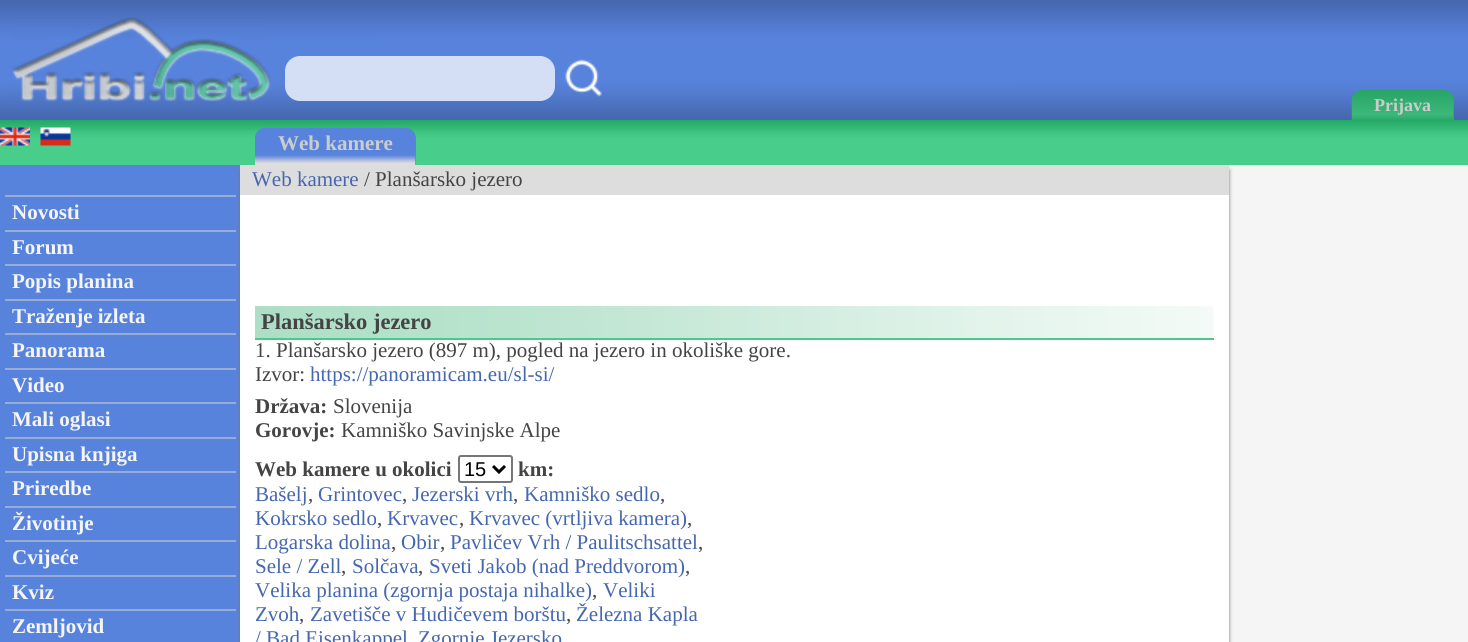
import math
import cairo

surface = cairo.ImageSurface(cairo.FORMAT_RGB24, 1468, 642)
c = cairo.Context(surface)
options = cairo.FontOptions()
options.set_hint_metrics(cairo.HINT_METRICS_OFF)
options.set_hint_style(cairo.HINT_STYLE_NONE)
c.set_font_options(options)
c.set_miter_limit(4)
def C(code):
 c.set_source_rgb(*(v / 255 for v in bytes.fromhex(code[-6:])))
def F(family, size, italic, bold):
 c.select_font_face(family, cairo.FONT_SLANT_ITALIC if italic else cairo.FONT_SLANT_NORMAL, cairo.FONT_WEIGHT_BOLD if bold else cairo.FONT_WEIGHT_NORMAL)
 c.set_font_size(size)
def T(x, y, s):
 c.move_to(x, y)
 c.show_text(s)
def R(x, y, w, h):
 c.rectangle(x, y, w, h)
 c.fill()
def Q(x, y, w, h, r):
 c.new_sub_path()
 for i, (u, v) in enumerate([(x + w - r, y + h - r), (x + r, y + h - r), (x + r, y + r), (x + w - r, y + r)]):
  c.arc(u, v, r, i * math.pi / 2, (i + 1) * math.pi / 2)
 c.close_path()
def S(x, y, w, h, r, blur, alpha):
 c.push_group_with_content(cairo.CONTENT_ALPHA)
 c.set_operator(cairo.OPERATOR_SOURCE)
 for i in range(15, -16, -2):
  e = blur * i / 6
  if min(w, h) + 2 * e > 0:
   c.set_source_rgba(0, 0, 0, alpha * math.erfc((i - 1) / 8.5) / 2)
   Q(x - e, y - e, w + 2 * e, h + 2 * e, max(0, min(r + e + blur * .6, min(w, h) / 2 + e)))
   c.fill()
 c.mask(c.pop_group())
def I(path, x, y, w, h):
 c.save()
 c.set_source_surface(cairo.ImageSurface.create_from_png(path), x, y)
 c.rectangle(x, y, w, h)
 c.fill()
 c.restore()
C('f5f5f5')
c.paint()
I('1.png',0,0,1468,120)
I('2.png',12,17,259,85)
C('d4dff5')
Q(285,56,270,45,15)
c.fill()
I('3.png',565,59,37,38)
C('2eac6d')
c.new_path()
c.move_to(1363,90)
c.line_to(1443,90)
c.curve_to(1449,90,1454,95,1454,101)
c.line_to(1454,120)
c.line_to(1352,120)
c.line_to(1352,101)
c.curve_to(1352,95,1357,90,1363,90)
c.close_path()
c.fill()
I('4.png',1351,90,102,30)
F('Liberation Serif',18,0,1)
C('cccccc')
T(1374,111,'Prijava')
I('5.png',0,120,1468,45)
I('6.png',0,127,30,19)
I('7.png',40,127,31,19)
C('5883dd')
c.new_path()
c.move_to(266,128)
c.line_to(405,128)
c.curve_to(411,128,416,133,416,139)
c.line_to(416,165)
c.line_to(255,165)
c.line_to(255,139)
c.curve_to(255,133,260,128,266,128)
c.close_path()
c.fill()
I('8.png',255,127,161,38)
F('Liberation Serif',21,0,1)
C('cccccc')
T(278,150,'Web kamere')
C('5883dd')
R(0,165,240,477)
C('99acd6')
R(5,195,231,2)
C('f5f5f5')
T(12,219,'Novosti')
C('99acd6')
R(5,230,231,2)
C('f5f5f5')
T(12,254,'Forum')
C('99acd6')
R(5,264,231,2)
C('f5f5f5')
T(12,288,'Popis planina')
C('99acd6')
R(5,299,231,2)
C('f5f5f5')
T(12,323,'Traženje izleta')
C('99acd6')
R(5,333,231,2)
C('f5f5f5')
T(12,357,'Panorama')
C('99acd6')
R(5,368,231,2)
C('f5f5f5')
T(12,392,'Video')
C('99acd6')
R(5,402,231,2)
C('f5f5f5')
T(12,426,'Mali oglasi')
C('99acd6')
R(5,437,231,2)
C('f5f5f5')
T(12,461,'Upisna knjiga')
C('99acd6')
R(5,471,231,2)
C('f5f5f5')
T(12,495,'Priredbe')
C('99acd6')
R(5,506,231,2)
C('f5f5f5')
T(12,530,'Životinje')
C('99acd6')
R(5,540,231,2)
C('f5f5f5')
T(12,564,'Cvijeće')
C('99acd6')
R(5,575,231,2)
C('f5f5f5')
T(12,599,'Kviz')
C('99acd6')
R(5,609,231,2)
C('f5f5f5')
T(12,633,'Zemljovid')
C('777777')
S(240,170,989,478,0,2,1)
C('ffffff')
R(240,195,989,447)
C('dddddd')
R(240,165,989,30)
F('Liberation Serif',21,0,0)
C('4567ae')
T(252,186,'Web kamere')
C('444444')
T(364,186,'/ Planšarsko jezero')
I('9.png',255,306,959,32)
C('47cb89')
R(255,338,959,2)
F('Liberation Serif',22.5,0,1)
C('444444')
T(261,329,'Planšarsko jezero')
F('Liberation Serif',21,0,0)
T(255,357,'1. Planšarsko jezero (897 m), pogled na jezero in okoliške gore.')
T(255,381,'Izvor:')
C('4567ae')
T(310,381,'https://panoramicam.eu/sl-si/')
F('Liberation Serif',21,0,1)
C('444444')
T(255,413,'Država:')
F('Liberation Serif',21,0,0)
T(333,413,'Slovenija')
F('Liberation Serif',21,0,1)
T(255,437,'Gorovje:')
F('Liberation Serif',21,0,0)
T(341,437,'Kamniško Savinjske Alpe')
F('Liberation Serif',21,0,1)
T(255,476,'Web kamere u okolici')
Q(459,456,53,26,2)
C('767676')
c.stroke()
c.new_path()
c.move_to(493,466)
c.line_to(499,472)
c.line_to(505,466)
C('000000')
c.set_line_width(3)
c.stroke()
F('Liberation Sans',20,0,0)
T(464,476,'15')
F('Liberation Serif',21,0,1)
C('444444')
T(518,476,'km:')
F('Liberation Serif',21,0,0)
C('4567ae')
T(255,501,'Bašelj')
C('444444')
T(308,501,',')
C('4567ae')
T(318,501,'Grintovec')
C('444444')
T(402,501,',')
C('4567ae')
T(412,501,'Jezerski vrh')
C('444444')
T(513,501,',')
C('4567ae')
T(524,501,'Kamniško sedlo')
C('444444')
T(660,501,',')
C('4567ae')
T(255,525,'Kokrsko sedlo')
C('444444')
T(377,525,',')
C('4567ae')
T(387,525,'Krvavec')
C('444444')
T(459,525,',')
C('4567ae')
T(469,525,'Krvavec (vrtljiva kamera)')
C('444444')
T(687,525,',')
C('4567ae')
T(255,549,'Logarska dolina')
C('444444')
T(391,549,',')
C('4567ae')
T(401,549,'Obir')
C('444444')
T(440,549,',')
C('4567ae')
T(450,549,'Pavličev Vrh / Paulitschsattel')
C('444444')
T(698,549,',')
C('4567ae')
T(255,573,'Sele / Zell')
C('444444')
T(341,573,',')
C('4567ae')
T(352,573,'Solčava')
C('444444')
T(418,573,',')
C('4567ae')
T(429,573,'Sveti Jakob (nad Preddvorom)')
C('444444')
T(685,573,',')
C('4567ae')
T(255,597,'Velika planina (zgornja postaja nihalke)')
C('444444')
T(592,597,',')
C('4567ae')
T(603,597,'Veliki')
T(255,621,'Zvoh')
C('444444')
T(299,621,',')
C('4567ae')
T(310,621,'Zavetišče v Hudičevem borštu')
C('444444')
T(566,621,',')
C('4567ae')
T(576,621,'Železna Kapla')
T(255,645,'/ Bad Eisenkappel')
T(418,645,'Zgornje Jezersko')
surface.write_to_png('o.png')
